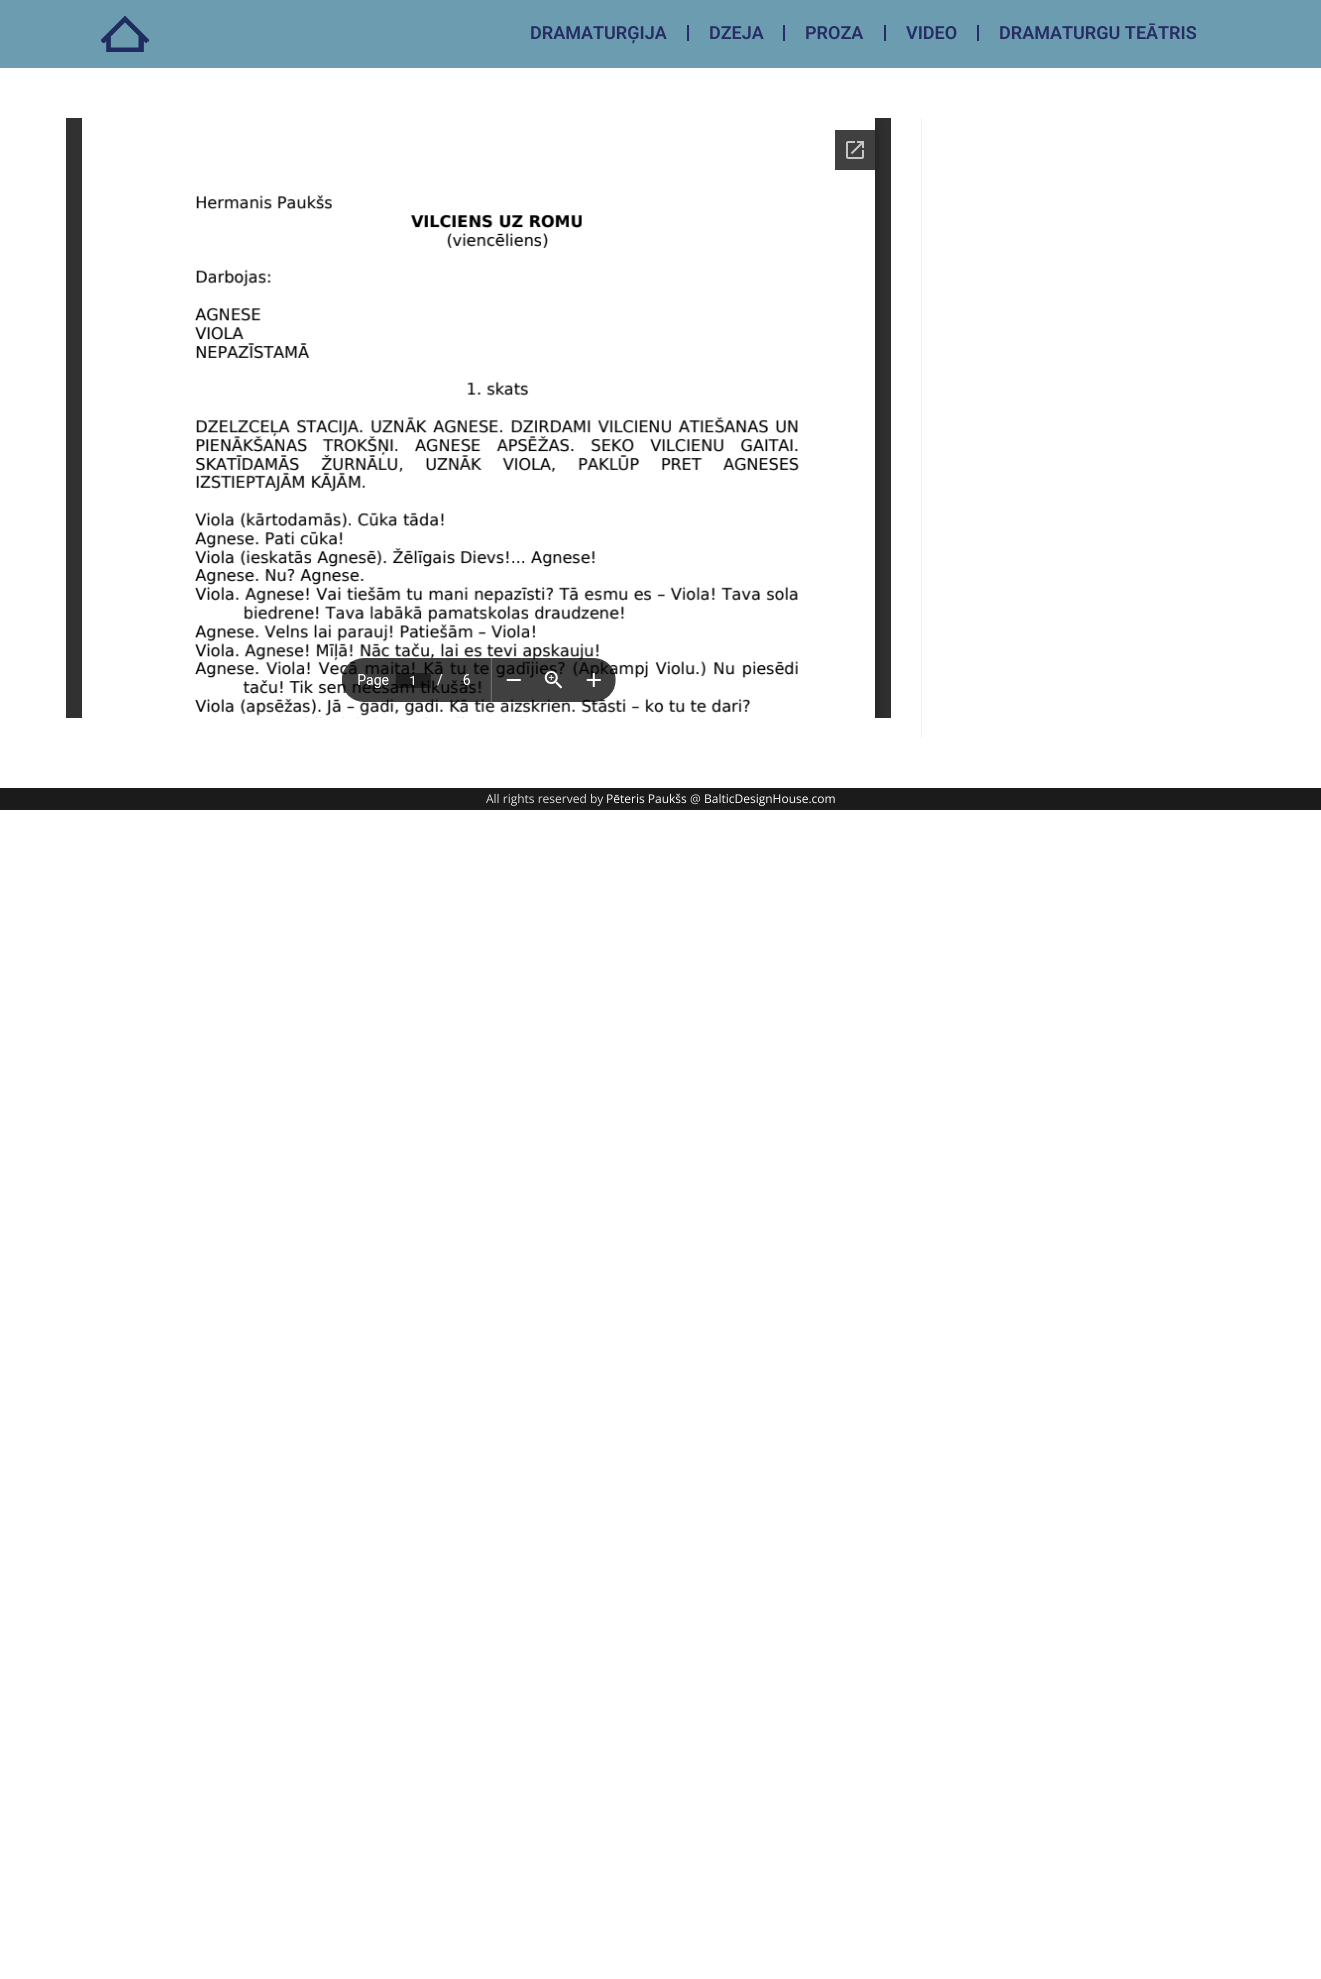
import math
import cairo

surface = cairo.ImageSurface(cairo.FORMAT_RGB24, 1321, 1979)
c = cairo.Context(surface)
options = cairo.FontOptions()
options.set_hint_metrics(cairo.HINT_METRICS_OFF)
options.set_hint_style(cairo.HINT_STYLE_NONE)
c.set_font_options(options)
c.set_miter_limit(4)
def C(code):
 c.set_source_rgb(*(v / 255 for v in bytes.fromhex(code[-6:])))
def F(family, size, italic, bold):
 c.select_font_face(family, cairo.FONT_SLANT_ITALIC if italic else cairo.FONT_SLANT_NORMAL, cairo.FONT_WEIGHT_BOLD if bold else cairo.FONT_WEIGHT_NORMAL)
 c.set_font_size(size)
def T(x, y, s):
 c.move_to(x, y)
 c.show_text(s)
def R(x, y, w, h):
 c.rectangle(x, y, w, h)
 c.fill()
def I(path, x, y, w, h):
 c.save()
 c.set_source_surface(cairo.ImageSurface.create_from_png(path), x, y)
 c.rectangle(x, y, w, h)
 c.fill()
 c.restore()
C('ffffff')
c.paint()
C('6b9cb0')
R(0,0,1321,68)
I('1.png',101,16,48,36)
F('Roboto SemiBold',18,0,0)
C('282c64')
T(530,39,'DRAMATURĢIJA')
R(687,25,2,16)
T(709,39,'DZEJA')
R(783,25,2,16)
T(805,39,'PROZA')
R(884,25,2,16)
T(906,39,'VIDEO')
R(977,25,2,16)
T(999,39,'DRAMATURGU TEĀTRIS')
C('f1f1f1')
R(921,118,1,620)
I('2.png',66,118,825,600)
C('1b1b1b')
R(0,788,1321,22)
F('Open Sans',12,0,0)
C('e0e0e0')
T(486,803,'All rights reserved by')
C('ffffff')
T(606,803,'Pēteris Paukšs')
C('e0e0e0')
T(690,803,'@')
C('ffffff')
T(704,803,'BalticDesignHouse.com')
surface.write_to_png('o.png')
